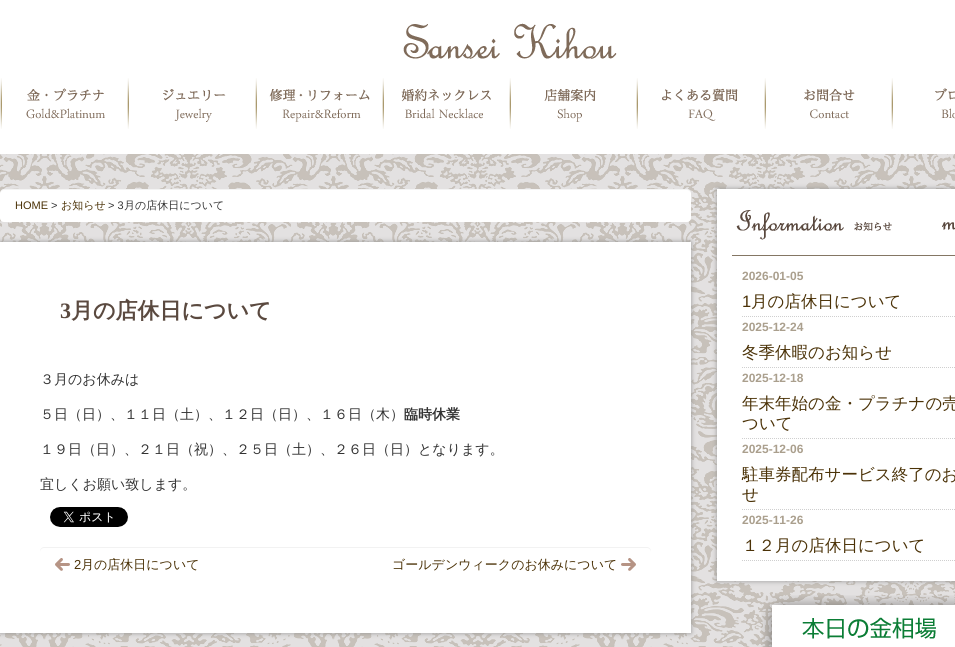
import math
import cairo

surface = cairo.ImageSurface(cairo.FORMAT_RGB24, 955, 647)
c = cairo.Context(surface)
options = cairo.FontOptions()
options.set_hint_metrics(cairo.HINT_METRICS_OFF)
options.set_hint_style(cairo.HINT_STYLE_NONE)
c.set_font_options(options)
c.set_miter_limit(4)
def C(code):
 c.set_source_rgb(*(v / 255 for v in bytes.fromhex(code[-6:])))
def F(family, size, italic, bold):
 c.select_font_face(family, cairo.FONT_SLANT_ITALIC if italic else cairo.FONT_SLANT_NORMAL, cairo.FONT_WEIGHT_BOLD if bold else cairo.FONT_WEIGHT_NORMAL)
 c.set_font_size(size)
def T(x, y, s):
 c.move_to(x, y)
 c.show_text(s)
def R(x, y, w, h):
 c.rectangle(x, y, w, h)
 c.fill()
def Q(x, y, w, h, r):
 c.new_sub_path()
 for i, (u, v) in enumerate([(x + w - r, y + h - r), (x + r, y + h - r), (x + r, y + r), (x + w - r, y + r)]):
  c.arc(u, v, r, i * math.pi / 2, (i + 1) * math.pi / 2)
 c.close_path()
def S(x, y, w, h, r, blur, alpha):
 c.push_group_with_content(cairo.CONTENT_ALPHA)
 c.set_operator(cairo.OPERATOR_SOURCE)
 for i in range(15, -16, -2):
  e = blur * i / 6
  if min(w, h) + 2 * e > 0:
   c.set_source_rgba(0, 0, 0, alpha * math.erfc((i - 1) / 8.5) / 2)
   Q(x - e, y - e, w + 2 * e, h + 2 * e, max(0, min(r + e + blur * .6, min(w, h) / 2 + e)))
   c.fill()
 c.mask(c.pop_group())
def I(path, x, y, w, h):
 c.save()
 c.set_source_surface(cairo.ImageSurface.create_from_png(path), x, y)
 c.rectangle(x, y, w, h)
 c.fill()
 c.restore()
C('ffffff')
c.paint()
I('1.png',0,154,955,493)
I('2.png',403,23,214,36)
I('3.png',0,78,893,51)
I('4.png',26,88,79,31)
I('5.png',163,89,63,33)
I('6.png',269,89,101,33)
I('7.png',401,89,90,30)
I('8.png',544,89,52,33)
I('9.png',662,88,76,33)
I('10.png',804,88,51,31)
I('11.png',935,88,20,31)
C('ffffff')
Q(0,189,691,33,4)
c.fill()
c.set_source_rgba(0,0,0,0.05)
c.new_path()
c.move_to(4,190)
c.line_to(687,190)
c.curve_to(689,190,691,192,691,194)
c.curve_to(691,191,690,189,687,189)
c.line_to(4,189)
c.line_to(1,190)
c.line_to(0,191)
c.line_to(0,194)
c.curve_to(0,192,2,190,4,190)
c.close_path()
c.fill()
F('Liberation Sans',11,0,0)
C('4b3207')
T(15,209,'HOME')
C('333333')
T(51,209,'>')
F('WenQuanYi Zen Hei Medium',11,0,0)
C('4b3207')
T(61,209,'お知らせ')
F('Liberation Sans',11,0,0)
C('333333')
T(108,209,'> 3')
F('WenQuanYi Zen Hei Medium',11,0,0)
T(124,209,'月の店休日について')
C('959595')
S(0,242,691,391,0,2.5,1)
C('ffffff')
R(0,242,691,391)
F('Liberation Serif',22,0,1)
C('5a493f')
T(60,318,'3')
F('WenQuanYi Zen Hei',22,0,1)
T(71,318,'月の店休日について')
F('WenQuanYi Zen Hei Medium',14,0,0)
C('333333')
T(40,384,'３月のお休みは')
T(40,419,'５日（日）、１１日（土）、１２日（日）、１６日（木）')
F('WenQuanYi Zen Hei',14,0,1)
T(404,419,'臨時休業')
F('WenQuanYi Zen Hei Medium',14,0,0)
T(40,454,'１９日（日）、２１日（祝）、２５日（土）、２６日（日）となります。')
T(40,489,'宜しくお願い致します。')
I('12.png',50,507,78,20)
C('f2f2f2')
c.new_path()
c.move_to(44,548)
c.line_to(647,548)
c.curve_to(649,548,651,550,651,552)
c.line_to(651,551)
c.curve_to(651,549,649,547,647,547)
c.line_to(44,547)
c.curve_to(42,547,40,549,40,551)
c.line_to(40,552)
c.curve_to(40,550,42,548,44,548)
c.close_path()
c.fill()
I('13.png',55,558,15,13)
F('Liberation Sans',13,0,0)
C('4b3207')
T(74,569,'2')
F('WenQuanYi Zen Hei Medium',13,0,0)
T(81,569,'月の店休日について')
T(392,569,'ゴールデンウィークのお休みについて')
I('14.png',621,558,15,13)
C('959595')
S(717,189,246,392,0,2.5,1)
C('ffffff')
R(717,189,238,392)
I('15.png',736,210,156,30)
I('16.png',942,222,13,8)
C('847664')
R(732,255,223,1)
F('Liberation Sans',12,0,1)
C('aa9f8d')
T(742,280,'2026-01-05')
c.new_path()
c.move_to(742,316.5)
c.line_to(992,316.5)
C('cfcfcf')
c.set_line_width(1)
c.set_dash([1,1])
c.stroke()
F('Liberation Sans',16.5,0,0)
C('4b3207')
T(742,307,'1')
F('WenQuanYi Zen Hei Medium',16.5,0,0)
T(751,307,'月の店休日について')
F('Liberation Sans',12,0,1)
C('aa9f8d')
T(742,331,'2025-12-24')
c.new_path()
c.move_to(742,367.5)
c.line_to(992,367.5)
C('cfcfcf')
c.stroke()
F('WenQuanYi Zen Hei Medium',16.5,0,0)
C('4b3207')
T(742,358,'冬季休暇のお知らせ')
F('Liberation Sans',12,0,1)
C('aa9f8d')
T(742,382,'2025-12-18')
c.new_path()
c.move_to(742,438.5)
c.line_to(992,438.5)
C('cfcfcf')
c.stroke()
F('WenQuanYi Zen Hei Medium',16.5,0,0)
C('4b3207')
T(742,409,'年末年始の金・プラチナの売')
T(742,429,'ついて')
F('Liberation Sans',12,0,1)
C('aa9f8d')
T(742,453,'2025-12-06')
c.new_path()
c.move_to(742,509.5)
c.line_to(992,509.5)
C('cfcfcf')
c.stroke()
F('WenQuanYi Zen Hei Medium',16.5,0,0)
C('4b3207')
T(742,480,'駐車券配布サービス終了のお')
T(742,500,'せ')
F('Liberation Sans',12,0,1)
C('aa9f8d')
T(742,524,'2025-11-26')
c.new_path()
c.move_to(742,560.5)
c.line_to(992,560.5)
C('cfcfcf')
c.stroke()
F('WenQuanYi Zen Hei Medium',16.5,0,0)
C('4b3207')
T(742,551,'１２月の店休日について')
I('17.png',761,595,194,52)
surface.write_to_png('o.png')
